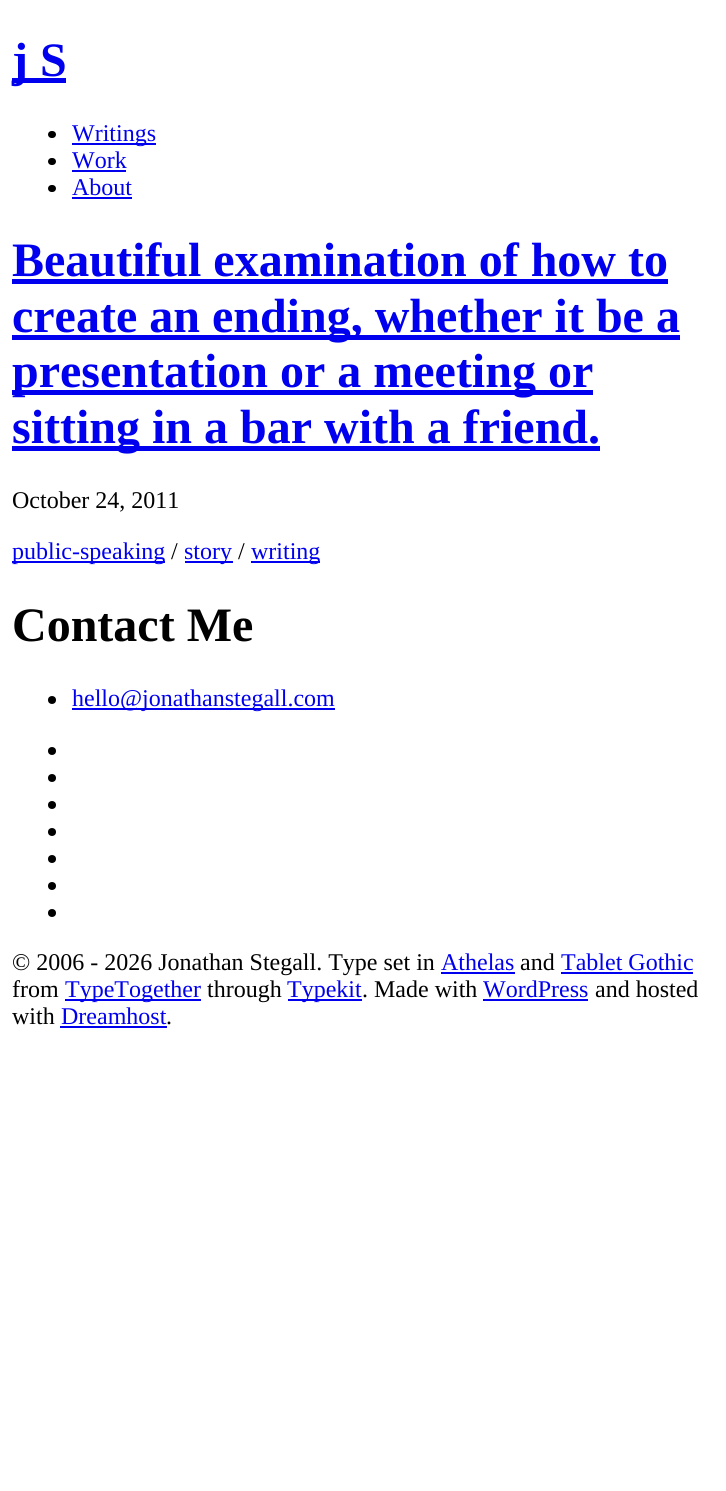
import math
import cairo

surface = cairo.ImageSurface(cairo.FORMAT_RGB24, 726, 1491)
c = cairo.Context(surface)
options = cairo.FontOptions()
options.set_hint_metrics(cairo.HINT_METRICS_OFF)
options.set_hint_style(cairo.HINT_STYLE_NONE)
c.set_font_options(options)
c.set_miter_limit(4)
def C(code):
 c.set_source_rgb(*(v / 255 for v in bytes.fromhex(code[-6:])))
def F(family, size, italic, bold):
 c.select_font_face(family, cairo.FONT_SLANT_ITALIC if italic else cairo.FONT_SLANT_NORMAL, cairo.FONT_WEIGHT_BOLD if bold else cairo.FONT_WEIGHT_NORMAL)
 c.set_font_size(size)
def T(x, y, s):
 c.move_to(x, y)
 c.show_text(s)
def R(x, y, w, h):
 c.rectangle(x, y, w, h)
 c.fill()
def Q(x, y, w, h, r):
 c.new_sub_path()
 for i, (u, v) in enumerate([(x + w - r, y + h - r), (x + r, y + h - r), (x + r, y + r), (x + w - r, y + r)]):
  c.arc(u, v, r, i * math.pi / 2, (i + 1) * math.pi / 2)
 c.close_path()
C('ffffff')
c.paint()
C('0000ee')
R(12,78,54,5)
F('Liberation Serif',48,0,1)
T(12,76,'j S')
C('000000')
Q(48,131,8,7,3.5)
c.fill()
C('0000ee')
R(72,143,84,2)
F('Liberation Serif',24,0,0)
T(72,141,'Writings')
C('000000')
Q(48,158,8,7,3.5)
c.fill()
C('0000ee')
T(72,168,'Work')
R(72,170,54,2)
C('000000')
Q(48,185,8,7,3.5)
c.fill()
C('0000ee')
T(72,195,'About')
R(72,197,60,2)
F('Liberation Serif',48,0,1)
T(12,276,'Beautiful examination of how to')
R(12,279,656,5)
R(12,335,668,5)
T(12,332,'create an ending, whether it be a')
R(12,390,581,5)
T(12,387,'presentation or a meeting or')
R(12,446,588,5)
T(12,443,'sitting in a bar with a friend.')
F('Liberation Serif',24,0,0)
C('000000')
T(12,508,'October 24, 2011')
C('0000ee')
R(12,561,153,2)
T(12,559,'public-speaking')
C('000000')
T(171,559,'/')
C('0000ee')
R(185,561,48,2)
T(184,559,'story')
C('000000')
T(238,559,'/')
C('0000ee')
R(251,561,69,2)
T(251,559,'writing')
F('Liberation Serif',48,0,1)
C('000000')
T(12,641,'Contact Me')
c.new_path()
c.arc(52,700,4,0,2 * math.pi)
c.fill()
C('0000ee')
R(72,708,263,2)
F('Liberation Serif',24,0,0)
T(72,706,'hello@jonathanstegall.com')
C('000000')
c.new_path()
c.arc(52,751,4,0,2 * math.pi)
c.fill()
c.arc(52,778,4,0,2 * math.pi)
c.fill()
c.arc(52,805,4,0,2 * math.pi)
c.fill()
c.arc(52,832,4,0,2 * math.pi)
c.fill()
c.arc(52,859,4,0,2 * math.pi)
c.fill()
c.arc(52,886,4,0,2 * math.pi)
c.fill()
c.arc(52,913,4,0,2 * math.pi)
c.fill()
T(12,970,'© 2006 - 2026 Jonathan Stegall. Type set in')
C('0000ee')
T(441,970,'Athelas')
R(441,972,74,2)
C('000000')
T(520,970,'and')
C('0000ee')
T(561,970,'Tablet Gothic')
R(561,972,132,2)
C('000000')
T(12,997,'from')
C('0000ee')
R(65,999,136,2)
T(65,997,'TypeTogether')
C('000000')
T(207,997,'through')
C('0000ee')
R(288,999,74,2)
T(287,997,'Typekit')
C('000000')
T(362,997,'. Made with')
C('0000ee')
T(483,997,'WordPress')
R(483,999,105,2)
C('000000')
T(595,997,'and hosted')
T(12,1024,'with')
C('0000ee')
T(61,1024,'Dreamhost')
R(60,1026,107,2)
C('000000')
T(166,1024,'.')
surface.write_to_png('o.png')
